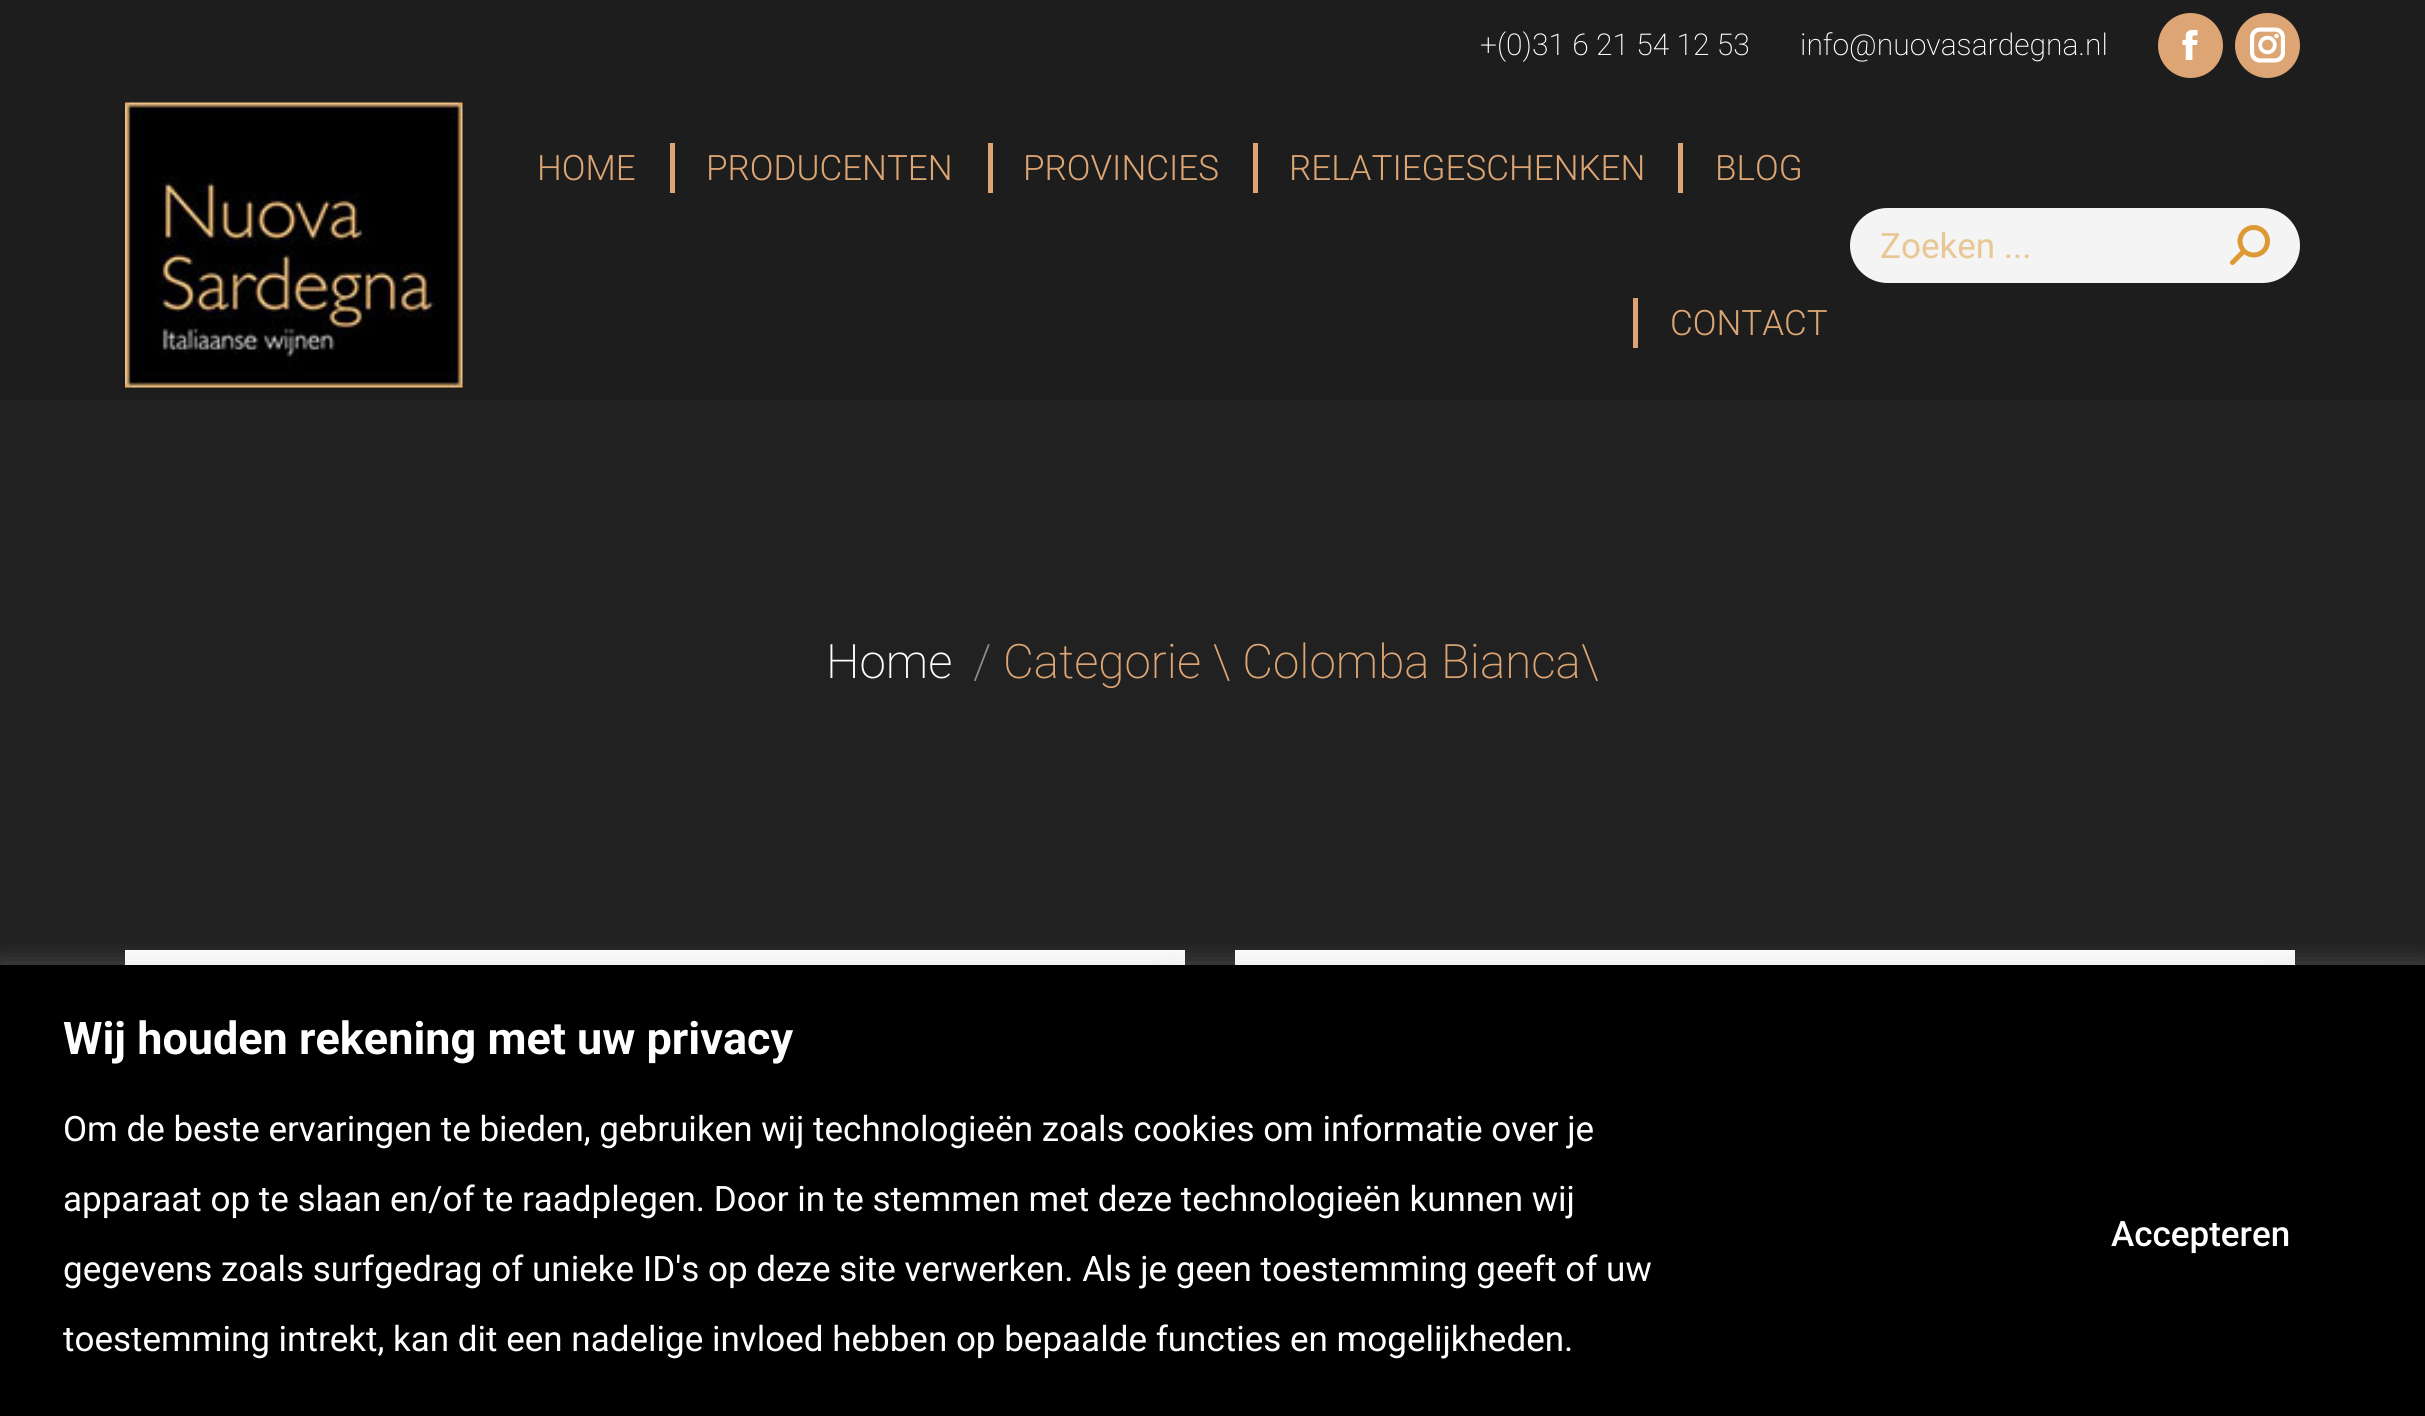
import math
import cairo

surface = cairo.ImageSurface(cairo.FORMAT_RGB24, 2425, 1416)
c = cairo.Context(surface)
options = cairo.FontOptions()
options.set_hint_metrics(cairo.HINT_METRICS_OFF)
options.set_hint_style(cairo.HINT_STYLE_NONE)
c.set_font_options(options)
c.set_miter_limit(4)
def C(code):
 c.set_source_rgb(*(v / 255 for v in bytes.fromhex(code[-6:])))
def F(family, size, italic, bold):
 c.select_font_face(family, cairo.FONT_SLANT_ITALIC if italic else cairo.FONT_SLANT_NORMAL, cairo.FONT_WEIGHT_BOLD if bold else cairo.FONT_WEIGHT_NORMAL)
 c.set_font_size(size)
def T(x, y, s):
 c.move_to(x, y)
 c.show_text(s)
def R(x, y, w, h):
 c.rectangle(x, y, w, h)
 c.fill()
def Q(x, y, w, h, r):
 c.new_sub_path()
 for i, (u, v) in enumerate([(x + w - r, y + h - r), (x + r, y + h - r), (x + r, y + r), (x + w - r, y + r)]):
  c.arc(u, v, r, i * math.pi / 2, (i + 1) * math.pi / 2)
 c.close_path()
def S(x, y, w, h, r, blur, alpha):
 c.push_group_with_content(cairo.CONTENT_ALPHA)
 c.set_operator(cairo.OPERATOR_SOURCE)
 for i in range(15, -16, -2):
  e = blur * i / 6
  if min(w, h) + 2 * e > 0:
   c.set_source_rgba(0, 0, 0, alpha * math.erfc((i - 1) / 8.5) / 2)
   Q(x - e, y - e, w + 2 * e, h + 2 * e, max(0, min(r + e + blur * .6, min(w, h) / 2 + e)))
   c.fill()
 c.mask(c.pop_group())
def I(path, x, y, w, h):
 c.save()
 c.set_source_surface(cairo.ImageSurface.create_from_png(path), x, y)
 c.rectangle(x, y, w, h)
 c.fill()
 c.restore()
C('212121')
c.paint()
C('1d1d1d')
R(0,0,2425,400)
F('Roboto ExtraLight',30,0,0)
C('ffffff')
T(1480,55,'+(0)31 6 21 54 12 53')
T(1800,55,'info@nuovasardegna.nl')
C('dda573')
c.new_path()
c.arc(2190.5,45.5,31,0,2 * math.pi)
c.fill_preserve()
c.set_line_width(3)
c.stroke()
I('1.png',2182,30,16,30)
c.arc(2267.5,45.5,31,0,2 * math.pi)
c.fill_preserve()
c.stroke()
I('2.png',2250,27,35,36)
I('3.png',125,102,338,286)
F('Roboto Light',35,0,0)
T(537,180,'HOME')
R(670,143,5,50)
T(706,180,'PRODUCENTEN')
R(988,143,5,50)
T(1023,180,'PROVINCIES')
R(1253,143,5,50)
T(1289,180,'RELATIEGESCHENKEN')
R(1678,143,5,50)
T(1715,180,'BLOG')
R(1633,298,5,50)
T(1670,335,'CONTACT')
C('f4f4f4')
Q(1850,208,450,75,37.5)
c.fill()
F('Roboto',35,0,0)
C('e9c794')
T(1880,258,'Zoeken ...')
I('4.png',2230,225,40,40)
F('Roboto ExtraLight',47.5,0,0)
C('ffffff')
T(826,678,'Home')
C('8f8f8f')
T(973,678,'/')
C('dda573')
T(1003,678,'Categorie \\ Colomba Bianca\\')
I('5.png',125,950,1060,15)
I('5.png',1235,950,1060,15)
C('acabab')
S(0,963,2425,452,0,12.5,.3)
C('000000')
R(0,965,2425,451)
F('Roboto',45,0,1)
C('ffffff')
T(63,1054,'Wij houden rekening met uw privacy')
F('Roboto',35,0,0)
T(63,1141,'Om de beste ervaringen te bieden, gebruiken wij technologieën zoals cookies om informatie over je')
T(63,1211,'apparaat op te slaan en/of te raadplegen. Door in te stemmen met deze technologieën kunnen wij')
T(63,1281,'gegevens zoals surfgedrag of unieke ID\'s op deze site verwerken. Als je geen toestemming geeft of uw')
T(63,1351,'toestemming intrekt, kan dit een nadelige invloed hebben op bepaalde functies en mogelijkheden.')
F('Roboto Medium',35,0,0)
T(2111,1246,'Accepteren')
surface.write_to_png('o.png')
